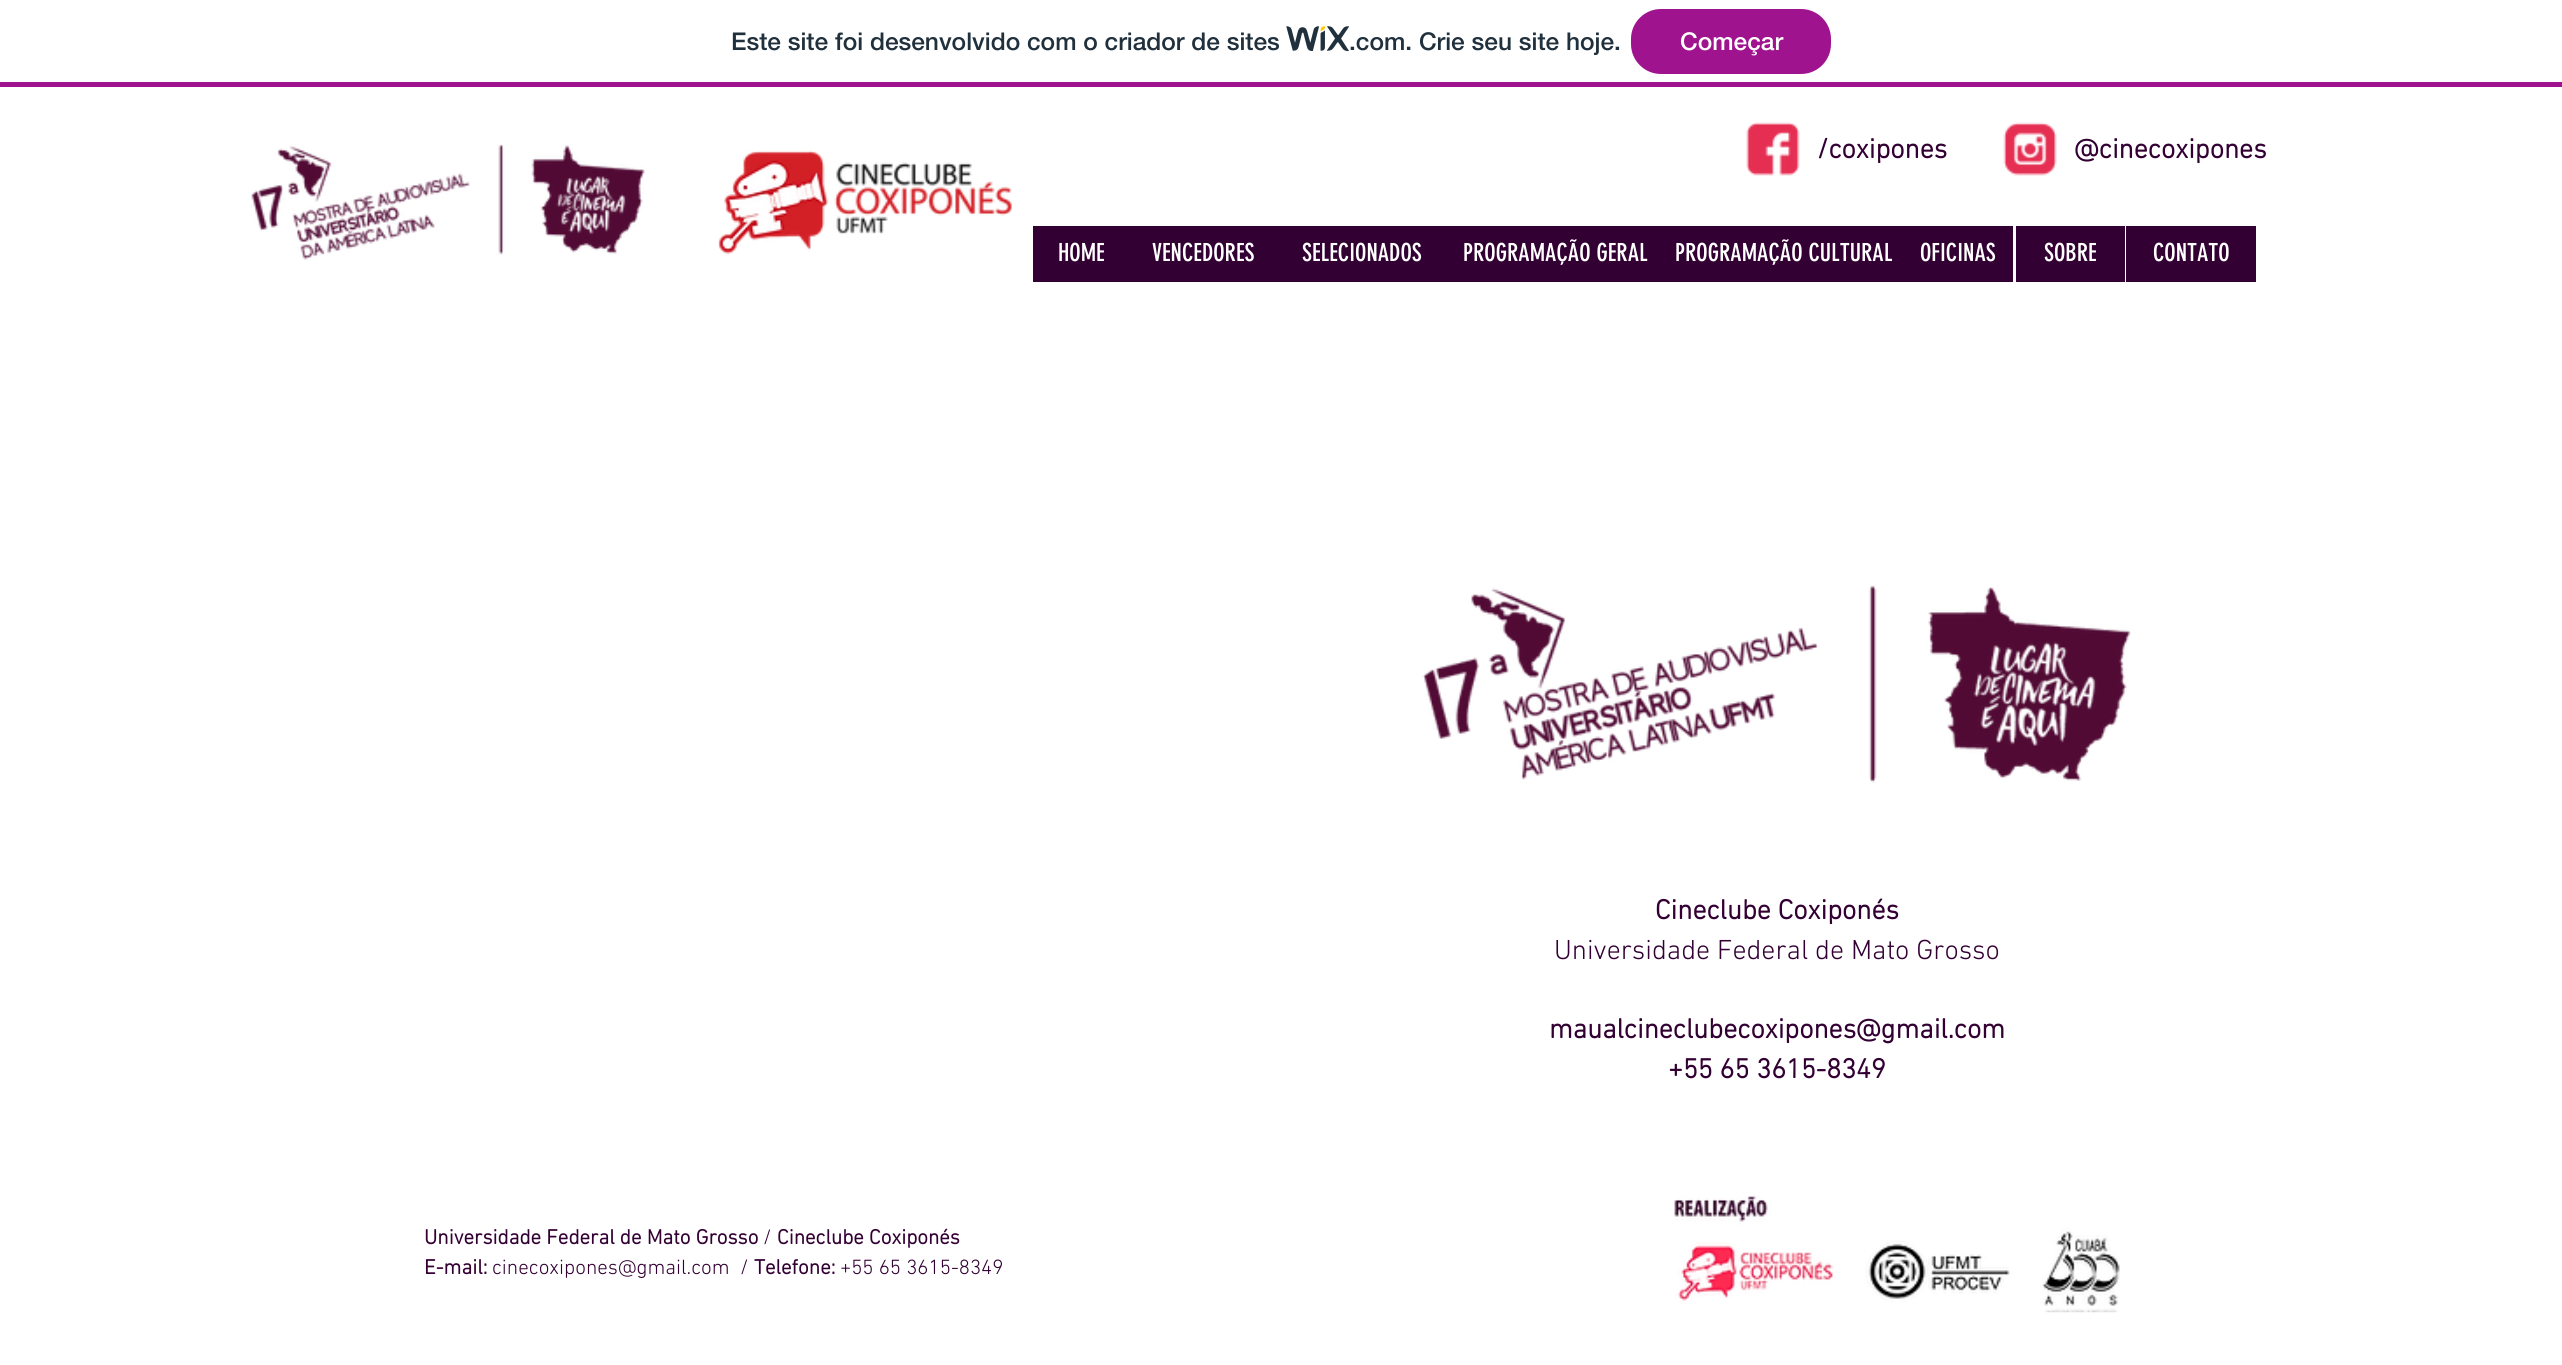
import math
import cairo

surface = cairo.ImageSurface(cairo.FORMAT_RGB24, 2562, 1365)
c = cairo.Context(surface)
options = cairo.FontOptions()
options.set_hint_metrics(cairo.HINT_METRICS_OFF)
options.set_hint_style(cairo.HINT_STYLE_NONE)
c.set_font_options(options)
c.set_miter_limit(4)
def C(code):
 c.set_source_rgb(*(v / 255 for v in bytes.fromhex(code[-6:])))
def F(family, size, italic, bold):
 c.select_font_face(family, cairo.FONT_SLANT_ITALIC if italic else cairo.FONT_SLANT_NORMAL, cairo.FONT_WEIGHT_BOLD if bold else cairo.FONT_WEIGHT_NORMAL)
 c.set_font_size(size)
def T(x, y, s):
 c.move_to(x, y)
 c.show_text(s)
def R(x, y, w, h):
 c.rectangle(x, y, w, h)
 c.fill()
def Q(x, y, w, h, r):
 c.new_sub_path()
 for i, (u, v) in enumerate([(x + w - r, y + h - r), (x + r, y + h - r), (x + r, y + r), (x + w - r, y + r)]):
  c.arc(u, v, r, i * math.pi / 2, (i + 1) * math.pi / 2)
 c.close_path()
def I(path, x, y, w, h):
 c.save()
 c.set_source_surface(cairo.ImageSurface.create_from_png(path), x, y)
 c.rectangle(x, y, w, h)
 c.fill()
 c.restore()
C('ffffff')
c.paint()
C('a0138e')
R(0,82,2562,5)
F('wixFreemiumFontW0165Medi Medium',24.5,0,0)
C('20303c')
T(731,50,'Este site foi desenvolvido com o criador de sites')
I('1.png',1286,26,63,26)
T(1349,50,'.com. Crie seu site hoje.')
C('a0138e')
Q(1632,10,198,63,29)
c.fill_preserve()
c.stroke()
C('ffffff')
T(1680,50,'Começar')
I('2.png',251,144,394,116)
I('3.png',718,150,294,105)
C('330033')
R(1033,226,980,56)
F('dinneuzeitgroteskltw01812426',24.5,0,0)
C('ffffff')
T(1463,261,'PROGRAMAÇÃO GERAL')
I('4.png',1746,122,54,54)
F('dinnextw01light',28,0,1)
C('330033')
T(1817,158,'/coxipones')
I('5.png',2003,122,54,54)
T(2074,158,'@cinecoxipones')
F('dinneuzeitgroteskltw01812426',24.5,0,0)
C('ffffff')
T(1058,261,'HOME')
T(1152,261,'VENCEDORES')
T(1302,261,'SELECIONADOS')
T(1675,261,'PROGRAMAÇÃO CULTURAL')
T(1920,261,'OFICINAS')
C('330033')
R(2016,226,109,56)
C('ffffff')
T(2044,261,'SOBRE')
C('330033')
R(2126,226,130,56)
C('ffffff')
T(2153,261,'CONTATO')
I('6.png',1422,585,709,198)
F('dinnextw01light',28,0,1)
C('330033')
T(1655,919,'Cineclube Coxiponés')
F('dinnextw01light Light',28,0,0)
T(1554,959,'Universidade Federal de Mato Grosso')
F('dinnextw01light',28,0,1)
T(1549,1038,'maualcineclubecoxipones@gmail.com')
T(1668,1078,'+55 65 3615-8349')
F('dinnextw01light',21,0,1)
T(424,1244,'Universidade Federal de Mato Grosso')
F('dinnextw01light Light',21,0,0)
T(763,1244,'/')
F('dinnextw01light',21,0,1)
T(777,1244,'Cineclube Coxiponés')
T(424,1274,'E-mail:')
F('dinnextw01light Light',21,0,0)
T(492,1274,'cinecoxipones@gmail.com')
T(740,1274,'/')
F('dinnextw01light',21,0,1)
T(754,1274,'Telefone:')
F('dinnextw01light Light',21,0,0)
T(840,1274,'+55 65 3615-8349')
I('7.png',1674,1195,446,118)
surface.write_to_png('o.png')
